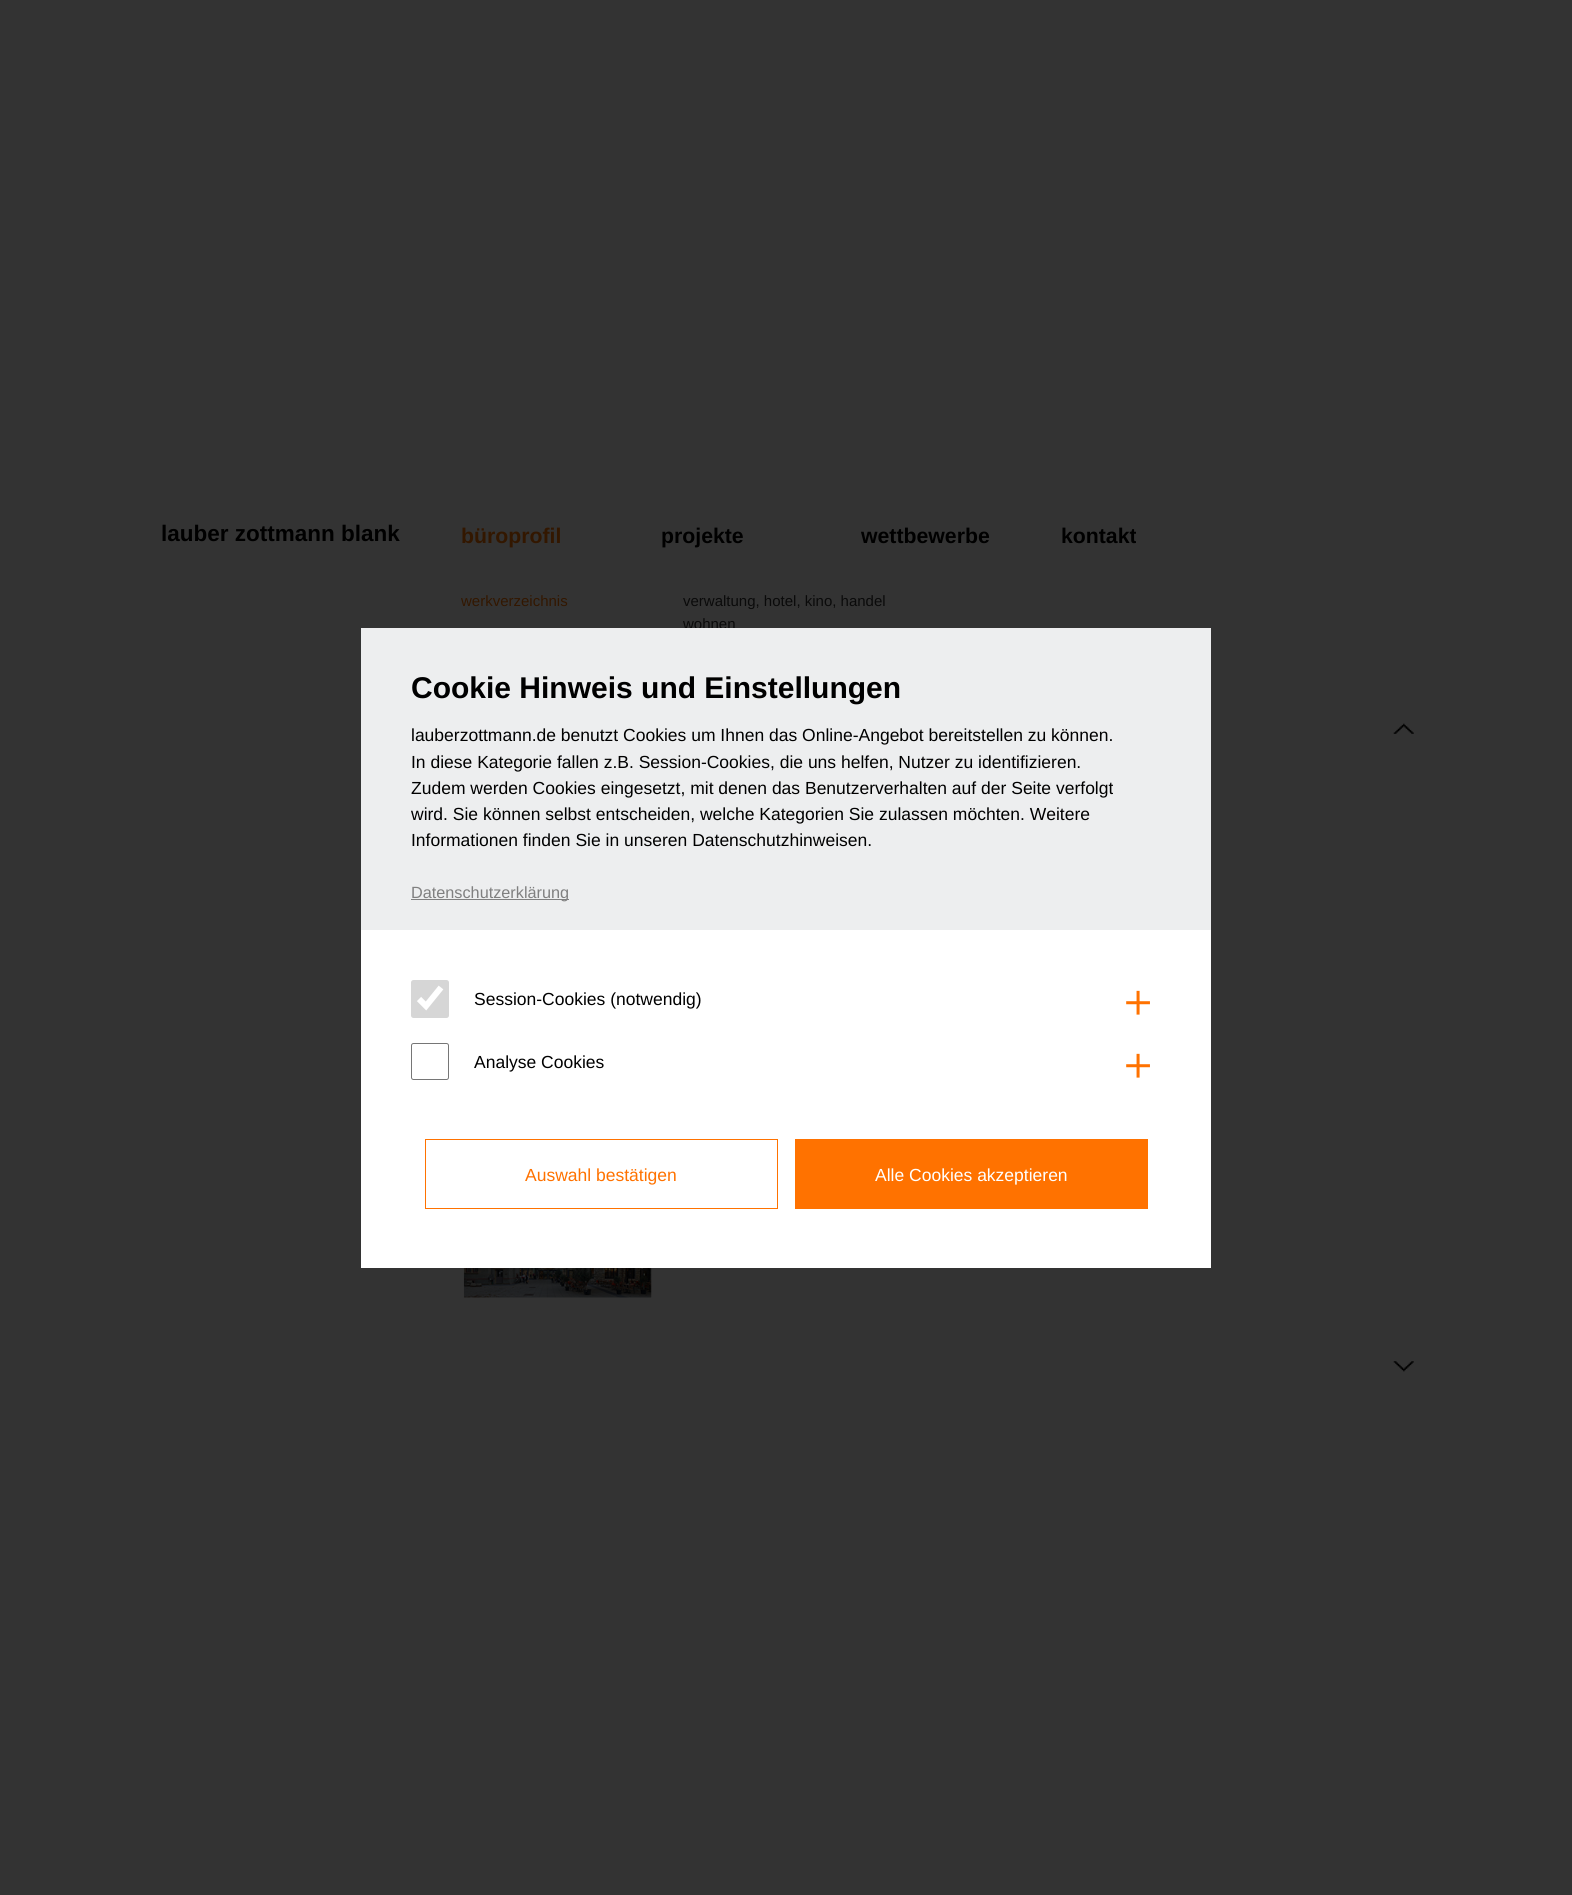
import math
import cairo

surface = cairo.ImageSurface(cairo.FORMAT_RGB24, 1572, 1895)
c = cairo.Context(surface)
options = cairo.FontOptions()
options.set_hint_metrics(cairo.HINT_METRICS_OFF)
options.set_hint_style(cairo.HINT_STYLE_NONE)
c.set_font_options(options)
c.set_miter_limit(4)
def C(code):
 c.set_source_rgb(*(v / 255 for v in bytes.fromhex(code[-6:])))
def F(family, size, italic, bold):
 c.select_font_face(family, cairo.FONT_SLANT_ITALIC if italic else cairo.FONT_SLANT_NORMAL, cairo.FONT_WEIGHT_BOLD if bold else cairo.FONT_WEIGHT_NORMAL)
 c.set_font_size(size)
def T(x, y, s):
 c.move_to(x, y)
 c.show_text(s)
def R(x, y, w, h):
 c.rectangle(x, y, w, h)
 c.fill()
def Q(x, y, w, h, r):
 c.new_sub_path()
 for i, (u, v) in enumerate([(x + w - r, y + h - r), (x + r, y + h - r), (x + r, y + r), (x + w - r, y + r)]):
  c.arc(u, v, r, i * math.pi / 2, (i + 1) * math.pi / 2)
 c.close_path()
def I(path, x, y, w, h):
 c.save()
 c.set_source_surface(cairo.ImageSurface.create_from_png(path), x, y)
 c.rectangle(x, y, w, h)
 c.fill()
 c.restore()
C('333333')
c.paint()
F('Liberation Sans',22.5,0,1)
C('000000')
T(161,541,'lauber zottmann blank')
F('Liberation Sans',21.25,0,1)
C('331700')
T(461,543,'büroprofil')
F('Liberation Sans',15,0,0)
T(461,606,'werkverzeichnis')
C('0a0a0a')
T(683,606,'verwaltung, hotel, kino, handel')
T(683,629,'wohnen')
F('Liberation Sans',21.25,0,1)
C('000000')
T(661,543,'projekte')
T(861,543,'wettbewerbe')
T(1061,543,'kontakt')
I('1.png',1393,723,21,11)
I('2.png',463,1268,189,30)
I('3.png',1393,1361,21,11)
C('ffffff')
R(361,930,850,338)
C('edeeef')
R(361,628,850,302)
F('Liberation Sans',30,0,1)
C('000000')
T(411,698,'Cookie Hinweis und Einstellungen')
F('Liberation Sans',17.5,0,0)
T(411,741,'lauberzottmann.de benutzt Cookies um Ihnen das Online-Angebot bereitstellen zu können.')
T(411,768,'In diese Kategorie fallen z.B. Session-Cookies, die uns helfen, Nutzer zu identifizieren.')
T(411,794,'Zudem werden Cookies eingesetzt, mit denen das Benutzerverhalten auf der Seite verfolgt')
T(411,820,'wird. Sie können selbst entscheiden, welche Kategorien Sie zulassen möchten. Weitere')
T(411,846,'Informationen finden Sie in unseren Datenschutzhinweisen.')
C('808080')
R(411,899,158,1)
F('Liberation Sans',16.25,0,0)
T(411,898,'Datenschutzerklärung')
C('d6d6d6')
Q(411,980,38,38,2.5)
c.fill()
c.new_path()
c.move_to(419,999)
c.line_to(426,1006)
c.line_to(441,987.5)
C('ffffff')
c.set_line_width(6)
c.stroke()
F('Liberation Sans',17.5,0,0)
C('000000')
T(474,1005,'Session-Cookies (notwendig)')
F('WenQuanYi Zen Hei Medium',46,0,0)
C('ff7200')
T(1115,1016,'＋')
Q(411.5,1043.5,37,36,2)
C('767676')
c.set_line_width(1)
c.stroke()
F('Liberation Sans',17.5,0,0)
C('000000')
T(474,1068,'Analyse Cookies')
F('WenQuanYi Zen Hei Medium',46,0,0)
C('ff7200')
T(1115,1079,'＋')
c.rectangle(425.5,1139.5,352,69)
c.stroke()
F('Liberation Sans',17.5,0,0)
T(525,1181,'Auswahl bestätigen')
R(795,1139,353,70)
C('ffffff')
T(875,1181,'Alle Cookies akzeptieren')
surface.write_to_png('o.png')
